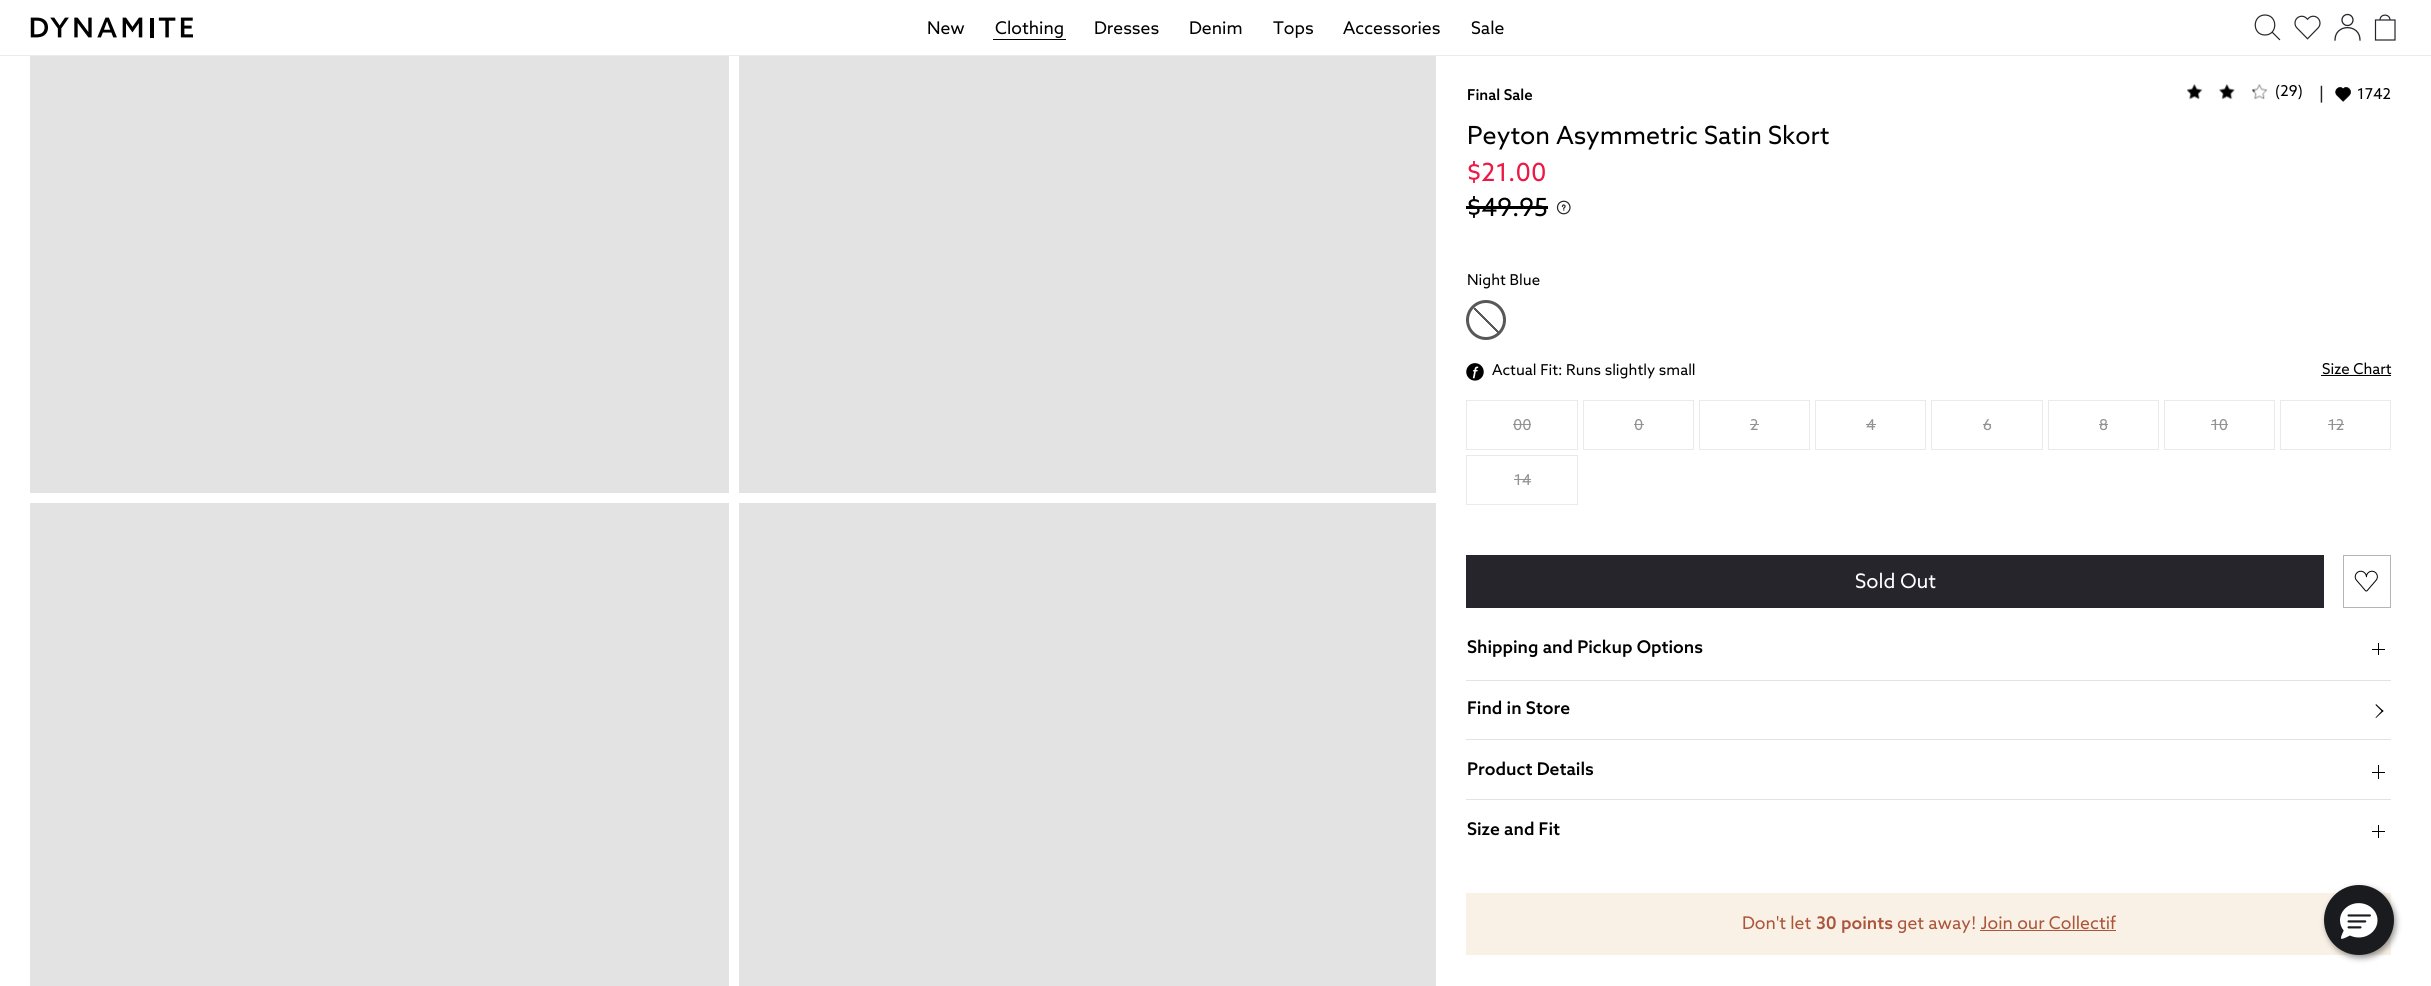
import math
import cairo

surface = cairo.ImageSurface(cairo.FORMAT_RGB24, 2431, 986)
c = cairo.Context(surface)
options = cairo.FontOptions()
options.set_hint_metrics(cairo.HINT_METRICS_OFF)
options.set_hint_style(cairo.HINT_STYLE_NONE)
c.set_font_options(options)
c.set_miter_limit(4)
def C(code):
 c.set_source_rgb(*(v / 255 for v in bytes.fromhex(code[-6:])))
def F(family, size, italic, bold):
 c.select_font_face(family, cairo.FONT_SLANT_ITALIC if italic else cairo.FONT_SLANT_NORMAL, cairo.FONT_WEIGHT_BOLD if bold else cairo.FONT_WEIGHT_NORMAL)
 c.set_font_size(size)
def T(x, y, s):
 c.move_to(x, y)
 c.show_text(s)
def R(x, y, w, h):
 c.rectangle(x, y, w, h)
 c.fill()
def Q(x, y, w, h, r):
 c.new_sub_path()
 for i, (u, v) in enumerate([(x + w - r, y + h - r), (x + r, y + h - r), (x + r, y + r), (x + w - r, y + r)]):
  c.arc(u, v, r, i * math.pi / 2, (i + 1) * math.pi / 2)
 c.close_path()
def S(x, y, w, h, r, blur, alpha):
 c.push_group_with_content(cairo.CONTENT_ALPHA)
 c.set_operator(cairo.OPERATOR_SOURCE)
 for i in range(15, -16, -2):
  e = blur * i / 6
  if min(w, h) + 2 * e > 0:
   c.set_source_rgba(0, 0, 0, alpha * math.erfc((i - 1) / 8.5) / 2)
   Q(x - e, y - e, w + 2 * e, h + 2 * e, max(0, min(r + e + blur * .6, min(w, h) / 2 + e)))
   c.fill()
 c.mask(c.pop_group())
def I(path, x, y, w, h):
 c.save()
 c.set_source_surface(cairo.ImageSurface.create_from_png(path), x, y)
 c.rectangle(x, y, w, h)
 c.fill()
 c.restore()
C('ffffff')
c.paint()
C('ece9e9')
R(0,55,2431,1)
I('1.png',30,17,163,21)
F('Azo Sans',17.5,0,0)
C('000000')
T(927,34,'New')
T(995,34,'Clothing')
R(993,39,73,1)
T(1094,34,'Dresses')
T(1189,34,'Denim')
T(1273,34,'Tops')
T(1343,34,'Accessories')
T(1471,34,'Sale')
c.new_path()
c.move_to(2279.5,39.5)
c.line_to(2272.5,32.5)
c.move_to(2265,35)
c.curve_to(2278,35,2278,15,2265,15)
c.curve_to(2252,15,2252,35,2265,35)
c.close_path()
C('25252b')
c.set_line_width(1.2)
c.set_line_cap(cairo.LINE_CAP_SQUARE)
c.stroke()
I('2.png',2294,15,27,25)
c.new_path()
c.move_to(2335,40)
c.curve_to(2335,23.5,2360,23.5,2360,40)
c.set_line_width(1.3)
c.stroke()
c.arc(2347.5,20,5.5,0,2 * math.pi)
c.set_line_cap(cairo.LINE_CAP_BUTT)
c.stroke()
c.new_path()
c.move_to(2390,20)
c.line_to(2395,20)
c.line_to(2395,40)
c.line_to(2375.5,40)
c.line_to(2375.5,20)
c.line_to(2380,20)
c.move_to(2390,20)
c.curve_to(2390,13.5,2380,13.5,2380,20)
c.move_to(2390,20)
c.line_to(2380,20)
c.set_line_width(1.2)
c.set_line_cap(cairo.LINE_CAP_SQUARE)
c.stroke()
C('e3e3e3')
R(30,56,699,437)
R(739,56,697,437)
R(30,503,699,483)
R(739,503,697,483)
F('Azo Sans Medium',15,0,0)
C('000000')
T(1467,100,'Final Sale')
I('3.png',2187,84,16,16)
I('4.png',2219,84,16,16)
I('5.png',2252,84,16,16)
F('Azo Sans',15,0,0)
T(2275,96,'(29)')
F('Roboto',20,0,0)
C('242424')
T(2319,100,'|')
I('6.png',2335,87,16,15)
F('Azo Sans',15,0,0)
C('000000')
T(2357,99,'1742')
F('Azo Sans',25,0,0)
T(1467,144,'Peyton Asymmetric Satin Skort')
C('ed1944')
T(1467,181,'$21.00')
C('000000')
T(1467,216,'$49.95')
R(1466,206,82,3)
I('7.png',1556,200,15,15)
F('Azo Sans',15,0,0)
T(1467,285,'Night Blue')
c.new_path()
c.arc(1486,320,18.5,0,2 * math.pi)
C('585858')
c.set_line_width(3)
c.set_line_cap(cairo.LINE_CAP_BUTT)
c.stroke()
gradient = cairo.LinearGradient(1469,338,1504,303)
gradient.add_color_stop_rgba(.48,0.345,0.345,0.345,0)
gradient.add_color_stop_rgba(.48,0.345,0.345,0.345,1)
gradient.add_color_stop_rgba(.52,0.345,0.345,0.345,1)
gradient.add_color_stop_rgba(.52,0.345,0.345,0.345,0)
gradient.add_color_stop_rgba(1,0,0,0,0)
c.set_source(gradient)
c.arc(1486.5,320.5,17.5,0,2 * math.pi)
c.fill()
I('8.png',1466,363,18,18)
C('000000')
T(1492,375,'Actual Fit: Runs slightly small')
c.rectangle(1466.5,400.5,111,49)
C('ece9e9')
c.set_line_width(1)
c.stroke()
C('939393')
T(1513,430,'00')
R(1513,424,18,1)
c.rectangle(1583.5,400.5,110,49)
C('ece9e9')
c.stroke()
C('939393')
T(1634,430,'0')
R(1634,424,10,1)
c.rectangle(1699.5,400.5,110,49)
C('ece9e9')
c.stroke()
C('939393')
T(1750,430,'2')
R(1750,424,9,1)
c.rectangle(1815.5,400.5,110,49)
C('ece9e9')
c.stroke()
C('939393')
T(1866,430,'4')
R(1866,424,10,1)
c.rectangle(1931.5,400.5,111,49)
C('ece9e9')
c.stroke()
C('939393')
T(1983,430,'6')
R(1983,424,8,1)
c.rectangle(2048.5,400.5,110,49)
C('ece9e9')
c.stroke()
C('939393')
T(2099,430,'8')
R(2099,424,9,1)
c.rectangle(2164.5,400.5,110,49)
C('ece9e9')
c.stroke()
C('939393')
T(2211,430,'10')
R(2211,424,17,1)
c.rectangle(2280.5,400.5,110,49)
C('ece9e9')
c.stroke()
C('939393')
T(2328,430,'12')
R(2328,424,16,1)
c.rectangle(1466.5,455.5,111,49)
C('ece9e9')
c.stroke()
C('939393')
T(1514,485,'14')
R(1514,479,17,1)
C('000000')
T(2322,374,'Size Chart')
R(2321,375,70,1)
C('25252b')
R(1466,555,858,53)
F('Azo Sans',20,0,0)
C('ffffff')
T(1855,588,'Sold Out')
c.rectangle(2343.5,555.5,47,52)
C('b5b5b5')
c.stroke()
I('9.png',2354,570,24,22)
F('Azo Sans Medium',17.5,0,0)
C('000000')
T(1467,653,'Shipping and Pickup Options')
R(2378,643,1,12)
R(2372,649,13,1)
C('e3e3e3')
R(1466,680,925,1)
R(1466,739,925,1)
C('000000')
T(1467,714,'Find in Store')
c.new_path()
c.move_to(2376,704)
c.line_to(2383.5,711)
c.line_to(2382.5,712)
c.line_to(2375.5,705)
c.close_path()
c.fill()
c.new_path()
c.move_to(2382.5,710)
c.line_to(2383.5,711)
c.line_to(2376,718)
c.line_to(2375.5,717.5)
c.close_path()
c.fill()
T(1467,775,'Product Details')
R(2378,765,1,14)
R(2372,772,13,1)
C('e3e3e3')
R(1466,799,925,1)
C('000000')
T(1467,835,'Size and Fit')
R(2378,825,1,13)
R(2372,831,13,1)
C('f9f1e5')
R(1466,893,925,62)
F('Azo Sans',17.5,0,0)
C('ab553b')
T(1742,929,'Don\'t let')
F('Azo Sans Medium',17.5,0,0)
T(1816,929,'30 points')
F('Azo Sans',17.5,0,0)
T(1897,929,'get away! Join our Collectif')
R(1980,930,136,1)
C('2d2d2d')
S(2326,888,70,70,35,3,.5)
C('1a1b1e')
c.arc(2359,920,35,0,2 * math.pi)
c.fill()
I('10.png',2340,903,38,36)
surface.write_to_png('o.png')
